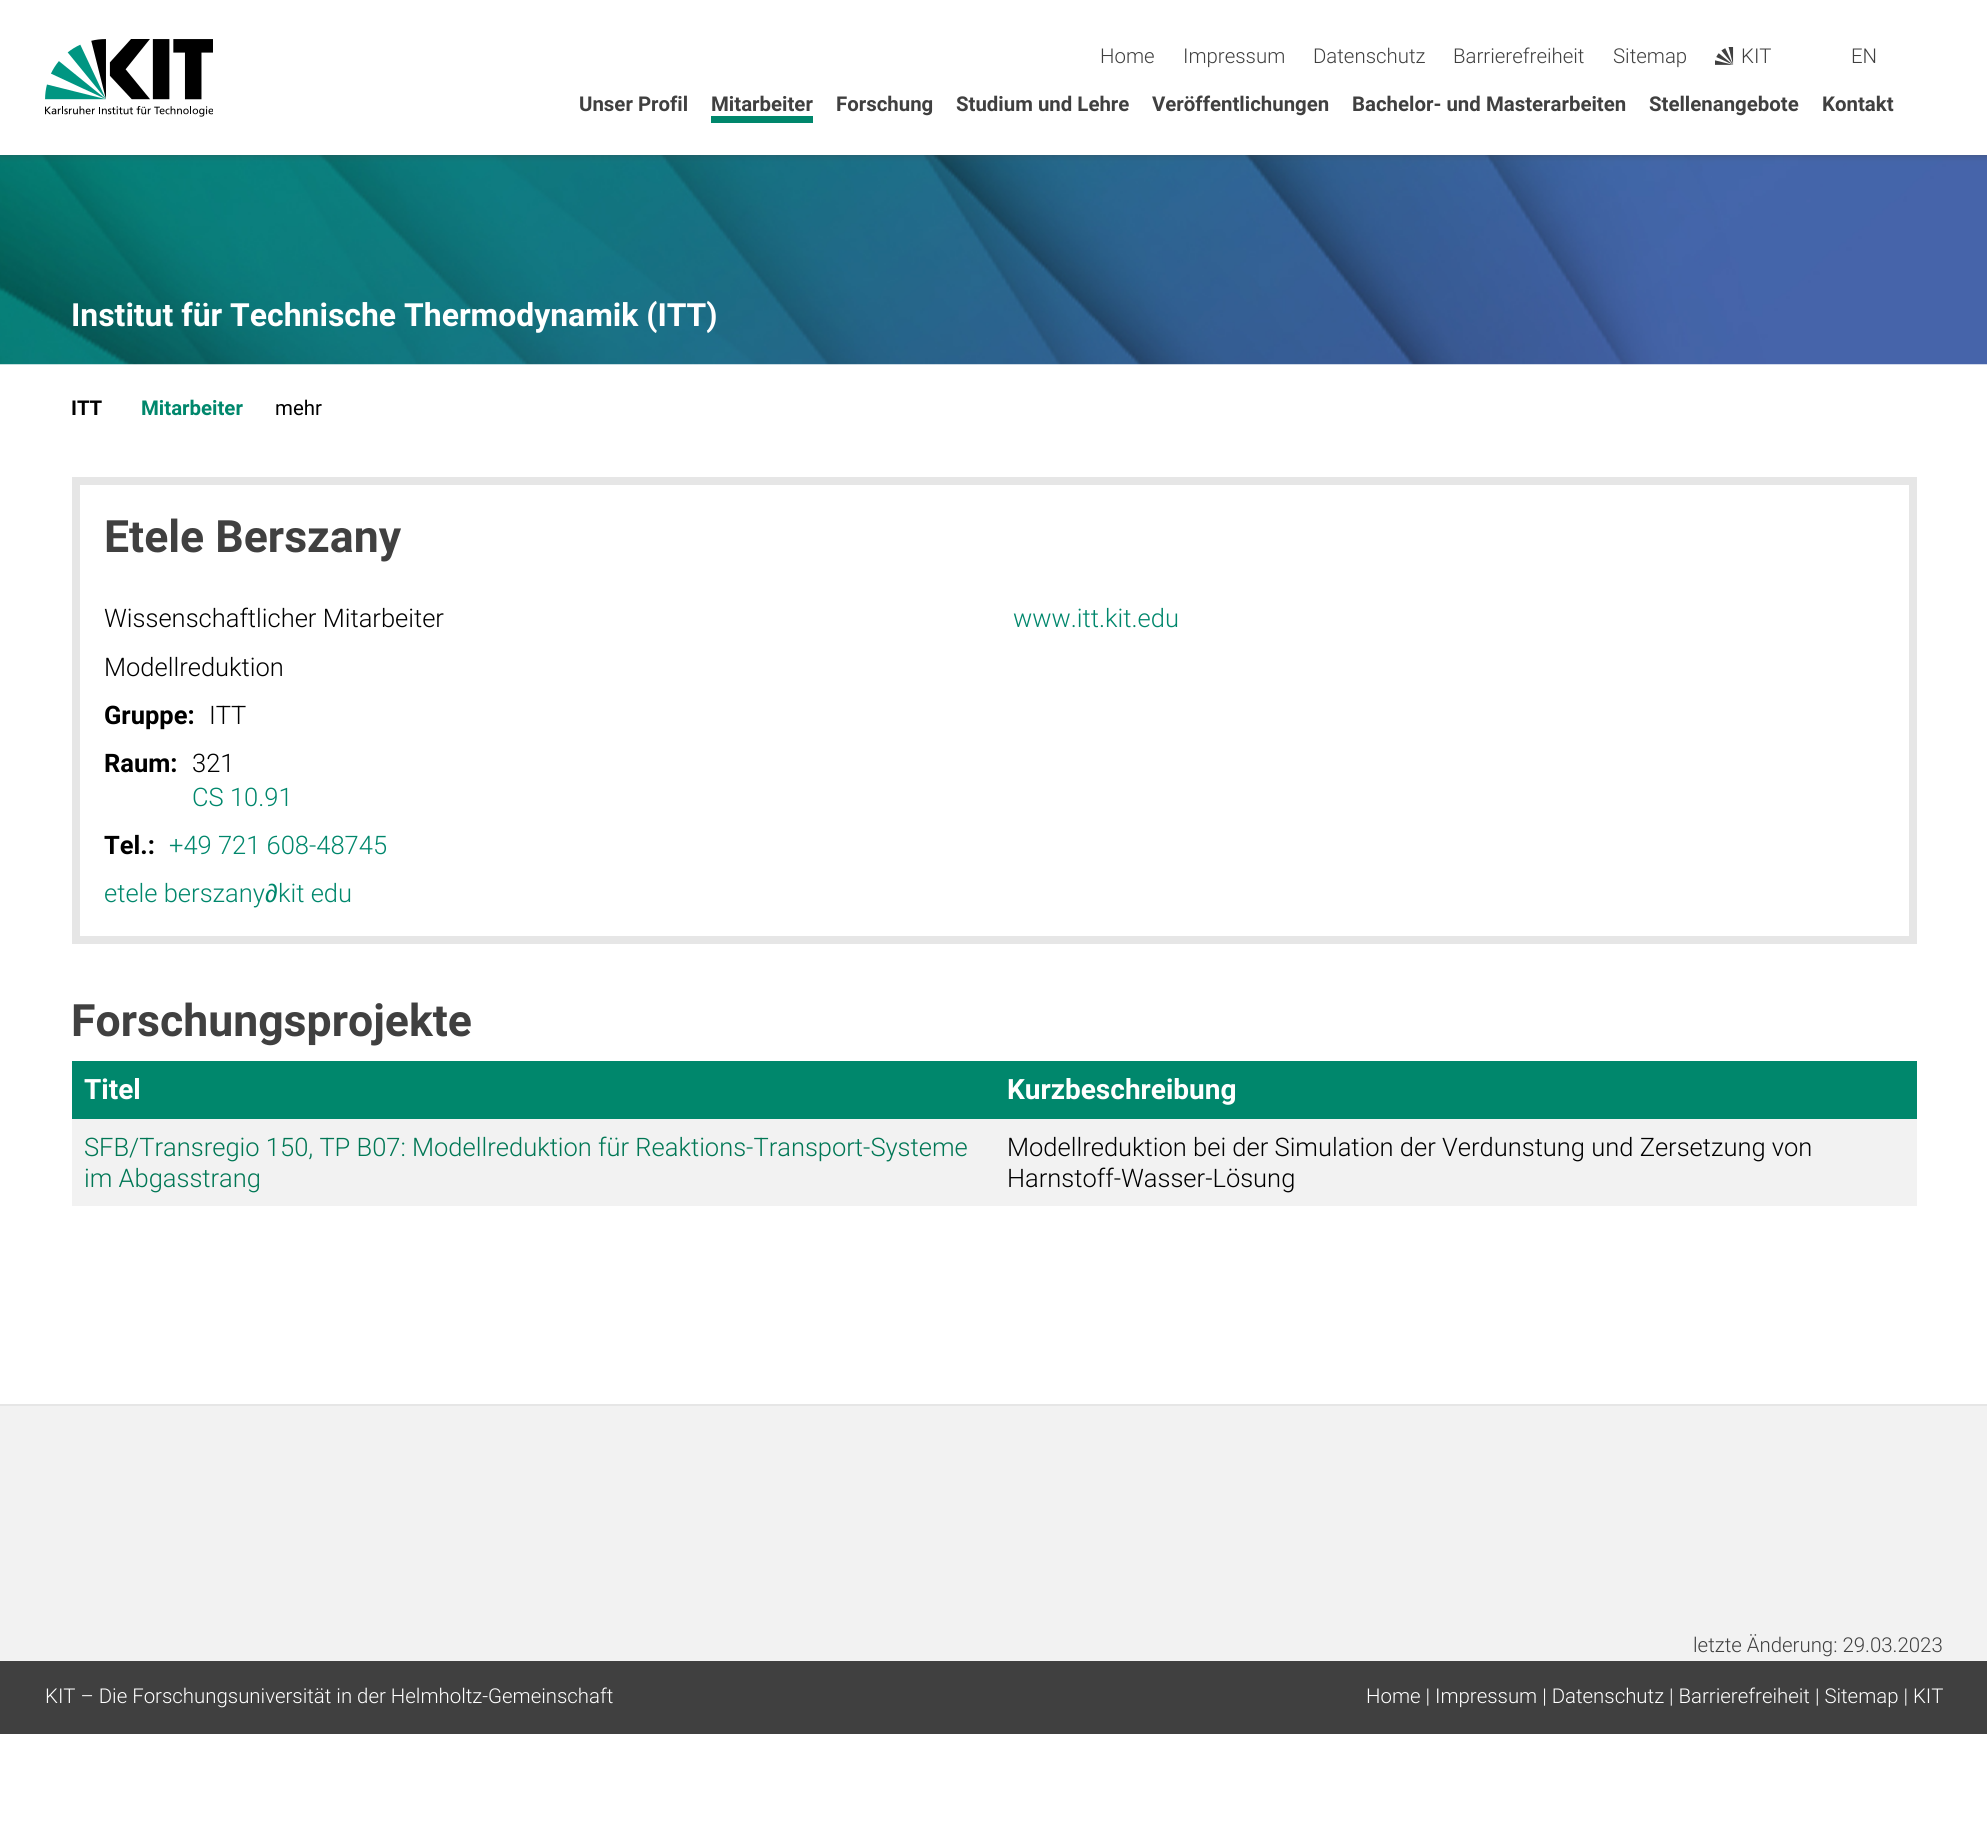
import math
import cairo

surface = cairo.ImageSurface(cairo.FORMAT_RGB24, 1987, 1826)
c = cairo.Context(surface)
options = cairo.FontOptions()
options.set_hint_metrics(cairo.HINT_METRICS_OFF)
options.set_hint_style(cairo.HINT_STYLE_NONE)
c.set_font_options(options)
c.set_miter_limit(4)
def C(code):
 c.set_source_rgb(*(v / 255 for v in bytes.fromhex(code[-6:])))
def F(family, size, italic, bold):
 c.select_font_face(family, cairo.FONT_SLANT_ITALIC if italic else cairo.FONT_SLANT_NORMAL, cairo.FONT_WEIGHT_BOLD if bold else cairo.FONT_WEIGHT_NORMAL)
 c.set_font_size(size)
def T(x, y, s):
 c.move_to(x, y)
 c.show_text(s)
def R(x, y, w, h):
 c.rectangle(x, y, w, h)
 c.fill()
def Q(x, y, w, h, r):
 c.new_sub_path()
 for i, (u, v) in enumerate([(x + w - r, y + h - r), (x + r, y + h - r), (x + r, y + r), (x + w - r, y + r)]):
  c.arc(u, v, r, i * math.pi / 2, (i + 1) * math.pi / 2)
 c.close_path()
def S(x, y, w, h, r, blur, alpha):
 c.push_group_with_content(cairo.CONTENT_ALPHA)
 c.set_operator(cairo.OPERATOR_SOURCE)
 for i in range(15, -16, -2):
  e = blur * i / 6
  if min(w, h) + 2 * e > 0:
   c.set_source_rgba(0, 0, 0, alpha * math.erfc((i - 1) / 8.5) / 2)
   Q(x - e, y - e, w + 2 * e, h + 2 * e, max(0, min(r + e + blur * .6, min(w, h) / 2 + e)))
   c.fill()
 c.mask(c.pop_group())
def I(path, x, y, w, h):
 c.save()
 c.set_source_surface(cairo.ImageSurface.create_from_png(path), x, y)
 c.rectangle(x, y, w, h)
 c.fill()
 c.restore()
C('ffffff')
c.paint()
I('3.png',0,155,1987,210)
C('404040')
S(0,0,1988,155,0,4,.5)
C('ffffff')
R(0,0,1987,155)
I('1.png',45,39,168,78)
F('Roboto Light',20.4,0,0)
C('404040')
T(1100,63,'Home')
T(1183,63,'Impressum')
T(1313,63,'Datenschutz')
T(1453,63,'Barrierefreiheit')
T(1613,63,'Sitemap')
I('2.png',1715,47,19,18)
T(1741,63,'KIT')
T(1851,63,'EN')
F('Roboto',20.4,0,1)
T(579,111,'Unser Profil')
T(711,111,'Mitarbeiter')
C('00876c')
R(711,116,102,7)
C('404040')
T(836,111,'Forschung')
T(956,111,'Studium und Lehre')
T(1152,111,'Veröffentlichungen')
T(1352,111,'Bachelor- und Masterarbeiten')
T(1649,111,'Stellenangebote')
T(1822,111,'Kontakt')
F('Roboto',31.9,0,1)
C('ffffff')
T(71,326,'Institut für Technische Thermodynamik (ITT)')
F('Roboto',20.4,0,1)
C('000000')
T(71,415,'ITT')
C('00876c')
T(141,415,'Mitarbeiter')
F('Roboto',20.4,0,0)
C('000000')
T(275,415,'mehr')
c.rectangle(76,481,1837,459)
C('e6e6e6')
c.set_line_width(8)
c.stroke()
F('Roboto',44.6,0,1)
C('404040')
T(104,552,'Etele Berszany')
F('Roboto Light',25.5,0,0)
C('000000')
T(104,627,'Wissenschaftlicher Mitarbeiter')
T(104,676,'Modellreduktion')
F('Roboto',25.5,0,1)
T(104,724,'Gruppe:')
F('Roboto Light',25.5,0,0)
T(209,724,'ITT')
F('Roboto',25.5,0,1)
T(104,772,'Raum:')
F('Roboto Light',25.5,0,0)
T(192,772,'321')
C('00876c')
T(192,806,'CS 10.91')
F('Roboto',25.5,0,1)
C('000000')
T(104,854,'Tel.:')
F('Roboto Light',25.5,0,0)
C('00876c')
T(169,854,'+49 721 608-48745')
T(104,902,'etele berszany')
F('Liberation Sans',25.5,0,0)
T(265,902,'∂')
F('Roboto Light',25.5,0,0)
T(278,902,'kit edu')
T(1013,627,'www.itt.kit.edu')
F('Roboto',44.6,0,1)
C('404040')
T(71,1036,'Forschungsprojekte')
C('00876c')
R(72,1061,1845,58)
F('Roboto',28,0,1)
C('ffffff')
T(84,1099,'Titel')
T(1007,1099,'Kurzbeschreibung')
C('f2f2f2')
R(72,1119,1845,87)
F('Roboto Light',25.5,0,0)
C('007755')
T(84,1156,'SFB/Transregio 150, TP B07: Modellreduktion für Reaktions-Transport-Systeme')
T(84,1187,'im Abgasstrang')
C('000000')
T(1007,1156,'Modellreduktion bei der Simulation der Verdunstung und Zersetzung von')
T(1007,1187,'Harnstoff-Wasser-Lösung')
C('f2f2f2')
R(0,1406,1987,255)
C('e6e6e6')
R(0,1404,1987,2)
F('Roboto Light',20.4,0,0)
C('404040')
T(1693,1652,'letzte Änderung: 29.03.2023')
R(0,1661,1987,73)
C('ffffff')
T(45,1703,'KIT – Die Forschungsuniversität in der Helmholtz-Gemeinschaft')
T(1366,1703,'Home | Impressum | Datenschutz | Barrierefreiheit | Sitemap | KIT')
surface.write_to_png('o.png')
